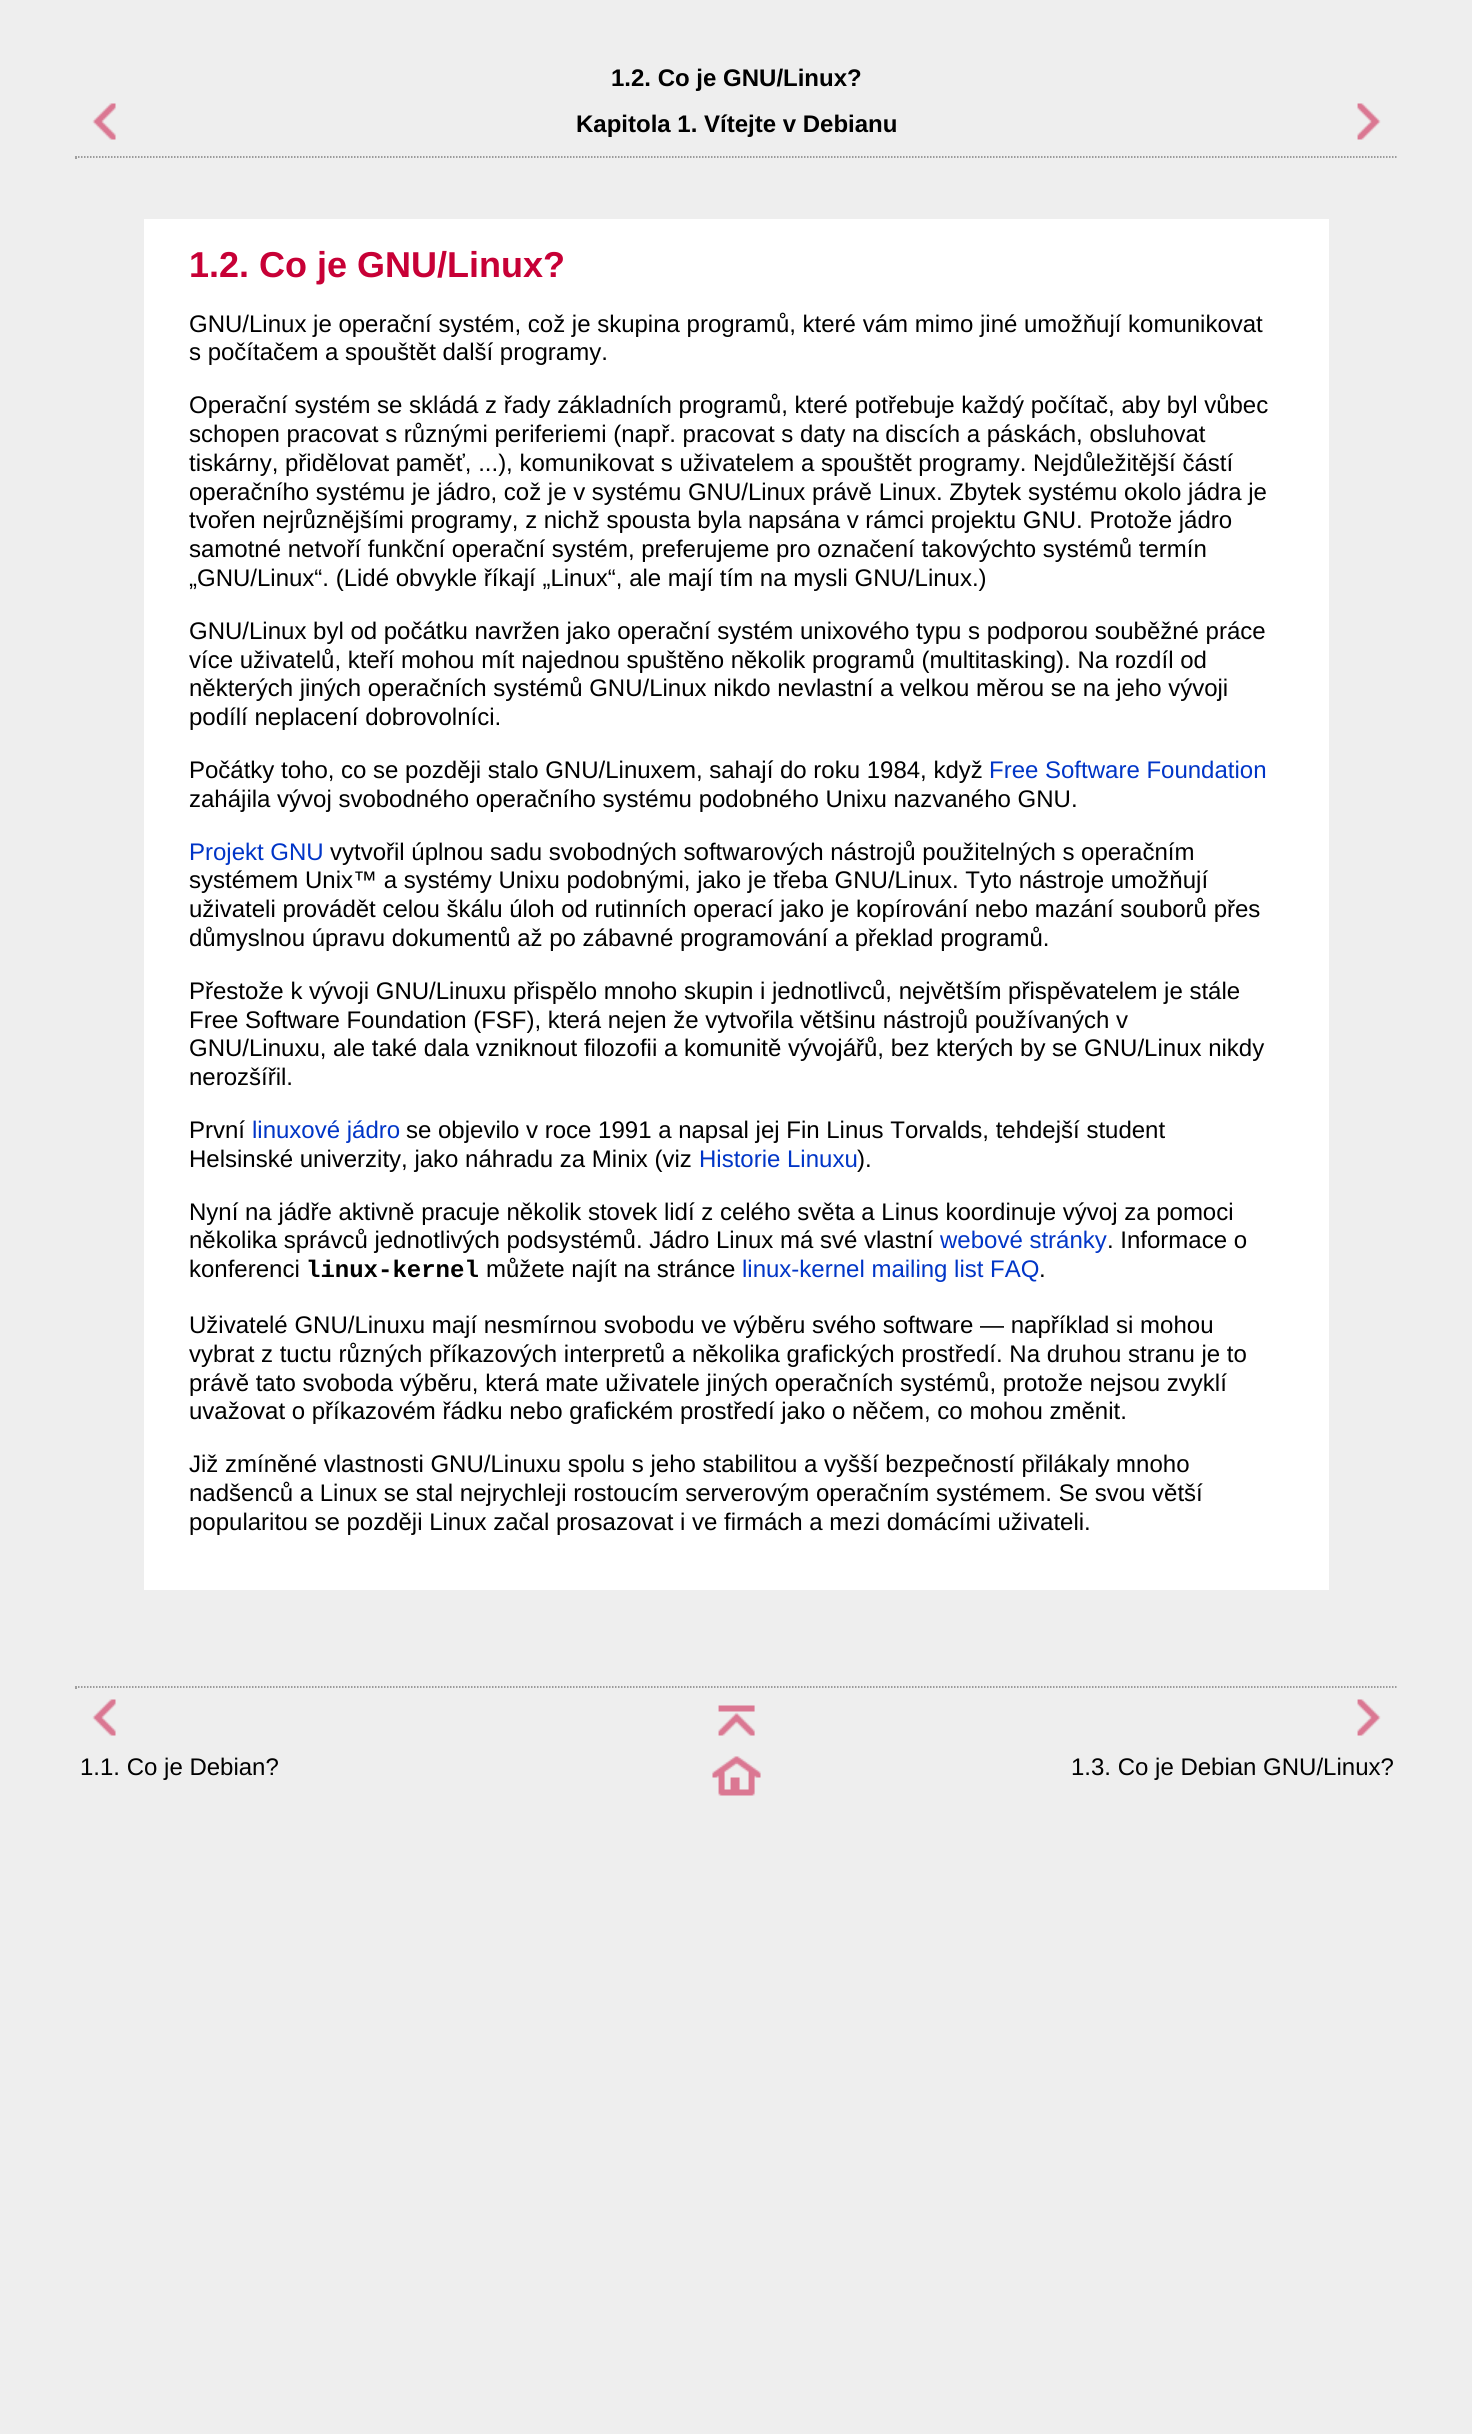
import math
import cairo

surface = cairo.ImageSurface(cairo.FORMAT_RGB24, 1472, 2434)
c = cairo.Context(surface)
options = cairo.FontOptions()
options.set_hint_metrics(cairo.HINT_METRICS_OFF)
options.set_hint_style(cairo.HINT_STYLE_NONE)
c.set_font_options(options)
c.set_miter_limit(4)
def C(code):
 c.set_source_rgb(*(v / 255 for v in bytes.fromhex(code[-6:])))
def F(family, size, italic, bold):
 c.select_font_face(family, cairo.FONT_SLANT_ITALIC if italic else cairo.FONT_SLANT_NORMAL, cairo.FONT_WEIGHT_BOLD if bold else cairo.FONT_WEIGHT_NORMAL)
 c.set_font_size(size)
def T(x, y, s):
 c.move_to(x, y)
 c.show_text(s)
def R(x, y, w, h):
 c.rectangle(x, y, w, h)
 c.fill()
def I(path, x, y, w, h):
 c.save()
 c.set_source_surface(cairo.ImageSurface.create_from_png(path), x, y)
 c.rectangle(x, y, w, h)
 c.fill()
 c.restore()
C('eeeeee')
c.paint()
F('Liberation Sans',24,0,1)
C('000000')
T(611,86,'1.2. Co je GNU/Linux?')
I('1.png',92,103,24,37)
T(576,132,'Kapitola 1. Vítejte v Debianu')
I('2.png',1357,103,24,37)
c.new_path()
c.move_to(75,157)
c.line_to(1398,157)
C('808080')
c.set_line_width(1.5)
c.set_dash([1.5,1.5])
c.stroke()
C('9f9f9f')
R(75,156,2,3)
C('ffffff')
R(144,219,1185,1371)
F('Liberation Sans',36,0,1)
C('c70036')
T(189,277,'1.2. Co je GNU/Linux?')
F('Liberation Sans',24,0,0)
C('000000')
T(189,332,'GNU/Linux je operační systém, což je skupina programů, které vám mimo jiné umožňují komunikovat')
T(189,360,'s počítačem a spouštět další programy.')
T(189,413,'Operační systém se skládá z řady základních programů, které potřebuje každý počítač, aby byl vůbec')
T(189,442,'schopen pracovat s různými periferiemi (např. pracovat s daty na discích a páskách, obsluhovat')
T(189,471,'tiskárny, přidělovat paměť, ...), komunikovat s uživatelem a spouštět programy. Nejdůležitější částí')
T(189,500,'operačního systému je jádro, což je v systému GNU/Linux právě Linux. Zbytek systému okolo jádra je')
T(189,528,'tvořen nejrůznějšími programy, z nichž spousta byla napsána v rámci projektu GNU. Protože jádro')
T(189,557,'samotné netvoří funkční operační systém, preferujeme pro označení takovýchto systémů termín')
T(189,586,'„GNU/Linux“. (Lidé obvykle říkají „Linux“, ale mají tím na mysli GNU/Linux.)')
T(189,639,'GNU/Linux byl od počátku navržen jako operační systém unixového typu s podporou souběžné práce')
T(189,668,'více uživatelů, kteří mohou mít najednou spuštěno několik programů (multitasking). Na rozdíl od')
T(189,696,'některých jiných operačních systémů GNU/Linux nikdo nevlastní a velkou měrou se na jeho vývoji')
T(189,725,'podílí neplacení dobrovolníci.')
T(189,778,'Počátky toho, co se později stalo GNU/Linuxem, sahají do roku 1984, když')
C('0035c7')
T(989,778,'Free Software Foundation')
C('000000')
T(189,807,'zahájila vývoj svobodného operačního systému podobného Unixu nazvaného GNU.')
C('0035c7')
T(189,860,'Projekt GNU')
C('000000')
T(330,860,'vytvořil úplnou sadu svobodných softwarových nástrojů použitelných s operačním')
T(189,888,'systémem Unix™ a systémy Unixu podobnými, jako je třeba GNU/Linux. Tyto nástroje umožňují')
T(189,917,'uživateli provádět celou škálu úloh od rutinních operací jako je kopírování nebo mazání souborů přes')
T(189,946,'důmyslnou úpravu dokumentů až po zábavné programování a překlad programů.')
T(189,999,'Přestože k vývoji GNU/Linuxu přispělo mnoho skupin i jednotlivců, největším přispěvatelem je stále')
T(189,1028,'Free Software Foundation (FSF), která nejen že vytvořila většinu nástrojů používaných v')
T(189,1056,'GNU/Linuxu, ale také dala vzniknout filozofii a komunitě vývojářů, bez kterých by se GNU/Linux nikdy')
T(189,1085,'nerozšířil.')
T(189,1138,'První')
C('0035c7')
T(252,1138,'linuxové jádro')
C('000000')
T(406,1138,'se objevilo v roce 1991 a napsal jej Fin Linus Torvalds, tehdejší student')
T(189,1167,'Helsinské univerzity, jako náhradu za Minix (viz')
C('0035c7')
T(699,1167,'Historie Linuxu')
C('000000')
T(857,1167,').')
T(189,1220,'Nyní na jádře aktivně pracuje několik stovek lidí z celého světa a Linus koordinuje vývoj za pomoci')
T(189,1248,'několika správců jednotlivých podsystémů. Jádro Linux má své vlastní')
C('0035c7')
T(940,1248,'webové stránky')
C('000000')
T(1107,1248,'. Informace o')
T(189,1277,'konferenci')
F('Liberation Mono',24,0,1)
T(306,1277,'linux-kernel')
F('Liberation Sans',24,0,0)
T(486,1277,'můžete najít na stránce')
C('0035c7')
T(742,1277,'linux-kernel mailing list FAQ')
C('000000')
T(1039,1277,'.')
T(189,1333,'Uživatelé GNU/Linuxu mají nesmírnou svobodu ve výběru svého software — například si mohou')
T(189,1362,'vybrat z tuctu různých příkazových interpretů a několika grafických prostředí. Na druhou stranu je to')
T(189,1391,'právě tato svoboda výběru, která mate uživatele jiných operačních systémů, protože nejsou zvyklí')
T(189,1419,'uvažovat o příkazovém řádku nebo grafickém prostředí jako o něčem, co mohou změnit.')
T(189,1472,'Již zmíněné vlastnosti GNU/Linuxu spolu s jeho stabilitou a vyšší bezpečností přilákaly mnoho')
T(189,1501,'nadšenců a Linux se stal nejrychleji rostoucím serverovým operačním systémem. Se svou větší')
T(189,1530,'popularitou se později Linux začal prosazovat i ve firmách a mezi domácími uživateli.')
c.new_path()
c.move_to(75,1687)
c.line_to(1398,1687)
C('808080')
c.stroke()
C('9f9f9f')
R(75,1686,2,3)
I('1.png',92,1699,24,37)
I('3.png',718,1705,37,31)
I('2.png',1357,1699,24,37)
C('000000')
T(80,1775,'1.1. Co je Debian?')
I('4.png',712,1756,49,40)
T(1071,1775,'1.3. Co je Debian GNU/Linux?')
surface.write_to_png('o.png')
